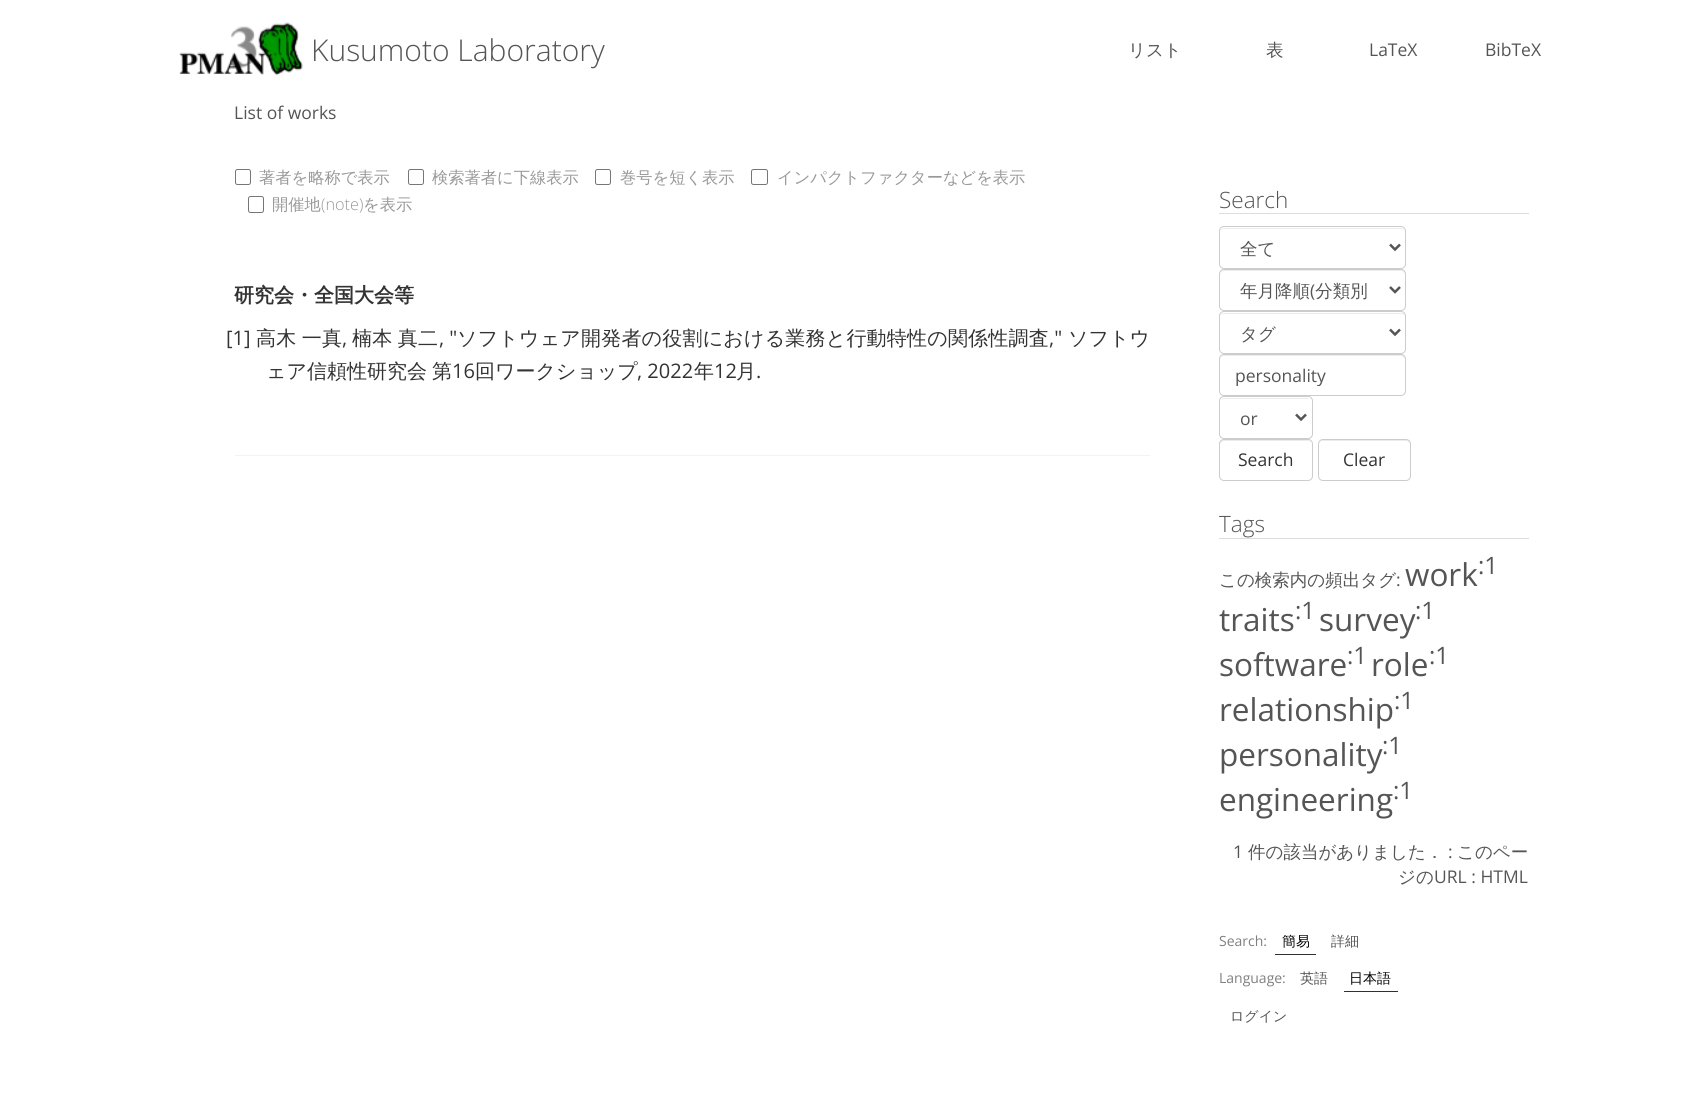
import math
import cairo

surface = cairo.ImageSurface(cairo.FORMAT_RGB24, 1706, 1114)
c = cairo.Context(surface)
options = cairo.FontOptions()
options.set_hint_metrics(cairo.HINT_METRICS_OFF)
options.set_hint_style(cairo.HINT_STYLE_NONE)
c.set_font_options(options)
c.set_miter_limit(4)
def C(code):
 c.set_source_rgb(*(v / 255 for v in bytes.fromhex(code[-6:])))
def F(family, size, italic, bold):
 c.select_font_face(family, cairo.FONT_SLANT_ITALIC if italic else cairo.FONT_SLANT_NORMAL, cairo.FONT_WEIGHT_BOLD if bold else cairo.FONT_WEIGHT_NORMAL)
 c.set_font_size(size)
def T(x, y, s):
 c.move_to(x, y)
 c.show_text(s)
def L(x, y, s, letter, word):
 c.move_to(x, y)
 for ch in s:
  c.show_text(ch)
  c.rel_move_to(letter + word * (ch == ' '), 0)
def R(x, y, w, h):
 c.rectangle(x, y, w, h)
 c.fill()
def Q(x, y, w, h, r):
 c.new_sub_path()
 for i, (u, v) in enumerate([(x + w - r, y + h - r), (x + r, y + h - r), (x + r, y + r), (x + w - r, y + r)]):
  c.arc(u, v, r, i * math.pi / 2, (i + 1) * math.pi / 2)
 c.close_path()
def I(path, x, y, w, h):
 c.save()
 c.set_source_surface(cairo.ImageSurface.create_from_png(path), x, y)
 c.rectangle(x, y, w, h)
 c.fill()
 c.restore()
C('ffffff')
c.paint()
I('1.png',179,22,124,54)
F('Open Sans Light',30,0,0)
C('555555')
T(311,61,'Kusumoto Laboratory')
F('WenQuanYi Zen Hei Medium',17.5,0,0)
T(1128,56,'リスト')
T(1266,56,'表')
F('Open Sans',17.5,0,0)
T(1369,56,'LaTeX')
T(1485,56,'BibTeX')
C('f3f3f3')
R(235,455,915,1)
C('555555')
T(234,119,'List of works')
Q(235.5,169.5,15,15,2)
C('767676')
c.set_line_width(1)
c.stroke()
F('WenQuanYi Zen Hei Medium',16.25,0,0)
C('999999')
T(259,183,'著者を略称で表示')
Q(408.5,169.5,15,15,2)
C('767676')
c.stroke()
C('999999')
T(432,183,'検索著者に下線表示')
Q(595.5,169.5,15,15,2)
C('767676')
c.stroke()
C('999999')
T(620,183,'巻号を短く表示')
Q(751.5,169.5,16,15,2)
C('767676')
c.stroke()
C('999999')
T(777,183,'インパクトファクターなどを表示')
Q(248.5,196.5,15,16,2)
C('767676')
c.stroke()
C('999999')
T(272,210,'開催地')
F('Open Sans Light',16.25,0,0)
T(321,210,'(note)')
F('WenQuanYi Zen Hei Medium',16.25,0,0)
T(363,210,'を表示')
F('WenQuanYi Zen Hei',20,0,1)
C('333333')
T(234,302,'研究会・全国大会等')
F('Open Sans',20,0,0)
T(226,345,'[1]')
F('WenQuanYi Zen Hei Medium',20,0,0)
L(256,345,'高木 一真',.25,-1)
F('Open Sans',20,0,0)
T(342,345,',')
F('WenQuanYi Zen Hei Medium',20,0,0)
L(352,345,'楠本 真二',.25,-1)
F('Open Sans',20,0,0)
T(439,345,', "')
F('WenQuanYi Zen Hei Medium',20,0,0)
L(457,345,'ソフトウェア開発者の役割における業務と行動特性の関係性調査',.2,0)
F('Open Sans',20,0,0)
T(1049,345,',"')
F('WenQuanYi Zen Hei Medium',20,0,0)
T(1068,345,'ソフトウ')
T(266,378,'ェア信頼性研究会')
T(432,378,'第')
F('Open Sans',20,0,0)
T(452,378,'16')
F('WenQuanYi Zen Hei Medium',20,0,0)
T(475,378,'回ワークショップ')
F('Open Sans',20,0,0)
T(637,378,', 2022')
F('WenQuanYi Zen Hei Medium',20,0,0)
T(694,378,'年')
F('Open Sans',20,0,0)
T(714,378,'12')
F('WenQuanYi Zen Hei Medium',20,0,0)
T(736,378,'月')
F('Open Sans',20,0,0)
T(756,378,'.')
C('dddddd')
R(1219,213,310,1)
F('Open Sans Light',22.5,0,0)
C('555555')
T(1219,208,'Search')
C('ececec')
c.new_path()
c.move_to(1224,229)
c.line_to(1401,229)
c.curve_to(1403,229,1405,230,1405,232)
c.curve_to(1405,230,1403,228,1401,228)
c.line_to(1224,228)
c.curve_to(1222,228,1220,230,1220,232)
c.curve_to(1220,230,1222,229,1224,229)
c.close_path()
c.fill()
Q(1219.5,226.5,186,42,4.5)
C('cccccc')
c.stroke()
c.new_path()
c.move_to(1390,244.5)
c.line_to(1395,249.5)
c.line_to(1400,244.5)
C('555555')
c.set_line_width(2.5)
c.stroke()
F('WenQuanYi Zen Hei Medium',17.5,0,0)
T(1240,255,'全て')
C('ececec')
c.new_path()
c.move_to(1224,271)
c.line_to(1401,271)
c.curve_to(1403,271,1405,273,1405,275)
c.curve_to(1405,272,1404,270,1401,270)
c.line_to(1223,270)
c.curve_to(1221,271,1220,273,1220,275)
c.curve_to(1220,273,1222,271,1224,271)
c.close_path()
c.fill()
Q(1219.5,269.5,186,41,4.5)
C('cccccc')
c.set_line_width(1)
c.stroke()
c.new_path()
c.move_to(1390,287)
c.line_to(1395,292)
c.line_to(1400,287)
C('555555')
c.set_line_width(2.5)
c.stroke()
T(1240,297,'年月降順 分類別')
F('Open Sans',17.5,0,0)
T(1310,297,'(')
C('ececec')
c.new_path()
c.move_to(1224,314)
c.line_to(1401,314)
c.curve_to(1403,314,1405,315,1405,318)
c.curve_to(1405,315,1404,313,1401,313)
c.line_to(1223,313)
c.curve_to(1221,314,1220,316,1220,318)
c.curve_to(1220,315,1222,314,1224,314)
c.close_path()
c.fill()
Q(1219.5,311.5,186,42,4.5)
C('cccccc')
c.set_line_width(1)
c.stroke()
c.new_path()
c.move_to(1390,329.5)
c.line_to(1395,334.5)
c.line_to(1400,329.5)
C('555555')
c.set_line_width(2.5)
c.stroke()
F('WenQuanYi Zen Hei Medium',17.5,0,0)
T(1240,340,'タグ')
C('ececec')
c.new_path()
c.move_to(1224,356)
c.line_to(1401,356)
c.curve_to(1403,356,1405,358,1405,360)
c.curve_to(1405,357,1404,355,1401,355)
c.line_to(1223,355)
c.curve_to(1221,356,1220,358,1220,360)
c.curve_to(1220,358,1222,356,1224,356)
c.close_path()
c.fill()
Q(1219.5,354.5,186,41,4.5)
C('cccccc')
c.set_line_width(1)
c.stroke()
c.save()
c.rectangle(1235,363,155,23)
c.clip()
F('Open Sans',17.5,0,0)
C('555555')
T(1235,382,'personality')
c.restore()
C('ececec')
c.new_path()
c.move_to(1224,399)
c.line_to(1309,399)
c.line_to(1310,400)
c.curve_to(1310,399,1308,398,1307,398)
c.line_to(1224,398)
c.curve_to(1222,398,1220,400,1220,402)
c.curve_to(1220,400,1222,399,1224,399)
c.close_path()
c.fill()
Q(1219.5,396.5,93,42,4.5)
C('cccccc')
c.stroke()
c.new_path()
c.move_to(1296,414.5)
c.line_to(1301,419.5)
c.line_to(1306,414.5)
C('555555')
c.set_line_width(2.5)
c.stroke()
F('Open Sans',17.5,0,0)
T(1240,425,'or')
C('ececec')
c.new_path()
c.move_to(1224,441)
c.line_to(1308,441)
c.curve_to(1310,441,1311,443,1311,445)
c.curve_to(1311,436,1298,440,1293,440)
c.line_to(1238,440)
c.curve_to(1233,440,1220,436,1220,445)
c.curve_to(1220,443,1222,441,1224,441)
c.close_path()
c.fill()
Q(1219.5,439.5,93,41,4.5)
C('cccccc')
c.set_line_width(1)
c.stroke()
C('333333')
T(1238,466,'Search')
C('ececec')
c.new_path()
c.move_to(1322,441)
c.line_to(1406,441)
c.curve_to(1408,441,1410,443,1410,445)
c.curve_to(1410,436,1397,440,1392,440)
c.line_to(1337,440)
c.curve_to(1332,440,1319,436,1319,445)
c.curve_to(1319,443,1320,441,1322,441)
c.close_path()
c.fill()
Q(1318.5,439.5,92,41,4.5)
C('cccccc')
c.stroke()
C('333333')
T(1343,466,'Clear')
C('dddddd')
R(1219,538,310,1)
F('Open Sans Light',22.5,0,0)
C('555555')
T(1219,532,'Tags')
F('WenQuanYi Zen Hei Medium',17.5,0,0)
T(1219,586,'この検索内の頻出タグ')
F('Open Sans',17.5,0,0)
T(1396,586,':')
F('Open Sans',31.5,0,0)
T(1405,586,'work')
F('Open Sans',24,0,0)
T(1478,574,':1')
F('Open Sans',31.5,0,0)
T(1219,631,'traits')
F('Open Sans',24,0,0)
T(1295,619,':1')
F('Open Sans',31.5,0,0)
T(1319,631,'survey')
F('Open Sans',24,0,0)
T(1415,619,':1')
F('Open Sans',31.5,0,0)
T(1219,676,'software')
F('Open Sans',24,0,0)
T(1347,664,':1')
F('Open Sans',31.5,0,0)
T(1371,676,'role')
F('Open Sans',24,0,0)
T(1429,664,':1')
F('Open Sans',31.5,0,0)
T(1219,721,'relationship')
F('Open Sans',24,0,0)
T(1394,709,':1')
F('Open Sans',31.5,0,0)
T(1219,766,'personality')
F('Open Sans',24,0,0)
T(1382,754,':1')
F('Open Sans',31.5,0,0)
T(1219,811,'engineering')
F('Open Sans',24,0,0)
T(1393,799,':1')
F('Open Sans',17.5,0,0)
T(1233,858,'1')
F('WenQuanYi Zen Hei Medium',17.5,0,0)
T(1248,858,'件の該当がありました．')
F('Open Sans',17.5,0,0)
T(1448,858,':')
F('WenQuanYi Zen Hei Medium',17.5,0,0)
T(1457,858,'このペー')
T(1398,883,'ジの')
F('Open Sans',17.5,0,0)
T(1434,883,'URL : HTML')
F('Open Sans',14,0,0)
C('808080')
T(1219,946,'Search:')
F('WenQuanYi Zen Hei Medium',14,0,0)
C('000000')
T(1282,946,'簡易')
C('303030')
R(1275,954,41,1)
C('555555')
T(1331,946,'詳細')
F('Open Sans',14,0,0)
C('808080')
T(1219,983,'Language:')
F('WenQuanYi Zen Hei Medium',14,0,0)
C('555555')
T(1300,983,'英語')
C('000000')
T(1349,983,'日本語')
C('303030')
R(1344,991,54,1)
C('555555')
T(1230,1021,'ログイン')
surface.write_to_png('o.png')
